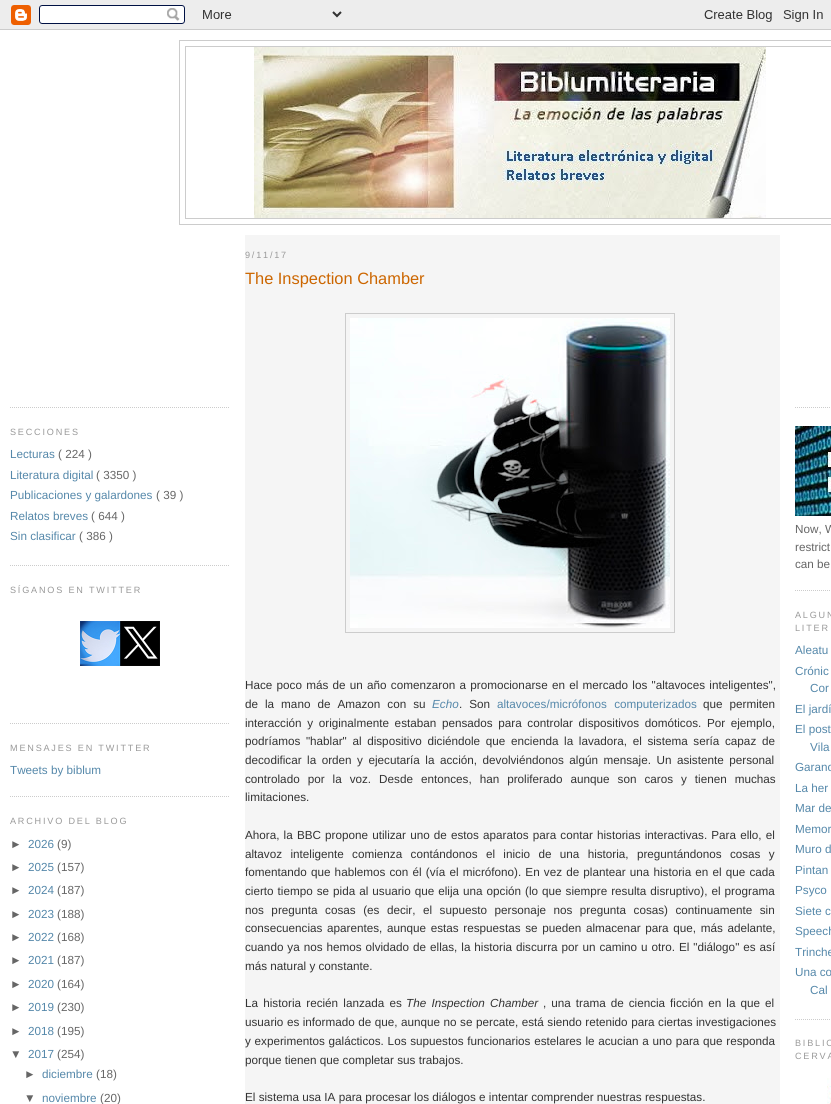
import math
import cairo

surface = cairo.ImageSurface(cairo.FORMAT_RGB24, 831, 1104)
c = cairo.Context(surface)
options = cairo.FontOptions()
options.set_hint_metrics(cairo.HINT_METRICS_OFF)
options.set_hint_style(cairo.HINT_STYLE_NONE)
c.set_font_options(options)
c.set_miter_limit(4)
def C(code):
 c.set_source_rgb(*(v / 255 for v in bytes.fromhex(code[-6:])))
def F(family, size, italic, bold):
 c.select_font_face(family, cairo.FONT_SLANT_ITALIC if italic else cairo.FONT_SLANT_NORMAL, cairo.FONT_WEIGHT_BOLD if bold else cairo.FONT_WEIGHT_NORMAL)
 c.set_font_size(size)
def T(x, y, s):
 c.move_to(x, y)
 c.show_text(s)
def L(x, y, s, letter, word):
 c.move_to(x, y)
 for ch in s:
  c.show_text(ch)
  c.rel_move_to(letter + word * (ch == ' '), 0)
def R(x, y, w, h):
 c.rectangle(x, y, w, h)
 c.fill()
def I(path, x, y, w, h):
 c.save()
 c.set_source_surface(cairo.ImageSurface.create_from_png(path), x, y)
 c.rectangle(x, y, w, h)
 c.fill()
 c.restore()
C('ffffff')
c.paint()
I('1.png',0,0,831,30)
c.rectangle(179.5,40.5,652,184)
C('cccccc')
c.set_line_width(1)
c.stroke()
c.rectangle(185.5,46.5,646,172)
c.stroke()
I('2.png',254,47,512,171)
c.new_path()
c.move_to(10,407.5)
c.line_to(230,407.5)
c.set_dash([1,1])
c.stroke()
c.new_path()
c.move_to(10,565.5)
c.line_to(230,565.5)
c.stroke()
F('Liberation Sans',9.1,0,0)
C('999999')
L(10,435,'SECCIONES',1.8,0)
F('Liberation Sans',11.7,0,0)
C('5588aa')
T(10,458,'Lecturas')
C('666666')
T(58,458,'( 224 )')
C('5588aa')
T(10,479,'Literatura digital')
C('666666')
T(96,479,'( 3350 )')
C('5588aa')
T(10,499,'Publicaciones y galardones')
C('666666')
T(156,499,'( 39 )')
C('5588aa')
T(10,520,'Relatos breves')
C('666666')
T(91,520,'( 644 )')
C('5588aa')
T(10,540,'Sin clasificar')
C('666666')
T(79,540,'( 386 )')
c.new_path()
c.move_to(10,723.5)
c.line_to(230,723.5)
C('cccccc')
c.stroke()
F('Liberation Sans',9.1,0,0)
C('999999')
L(10,593,'SÍGANOS EN TWITTER',1.8,0)
I('3.png',80,621,80,45)
c.new_path()
c.move_to(10,796.5)
c.line_to(230,796.5)
C('cccccc')
c.stroke()
C('999999')
L(10,751,'MENSAJES EN TWITTER',1.8,0)
F('Liberation Sans',11.7,0,0)
C('5588aa')
T(10,774,'Tweets by biblum')
F('Liberation Sans',9.1,0,0)
C('999999')
L(10,824,'ARCHIVO DEL BLOG',1.8,0)
F('Liberation Sans',11.7,0,0)
C('666666')
T(10,848,'►')
C('5588aa')
T(28,848,'2026')
C('666666')
T(57,848,'(9)')
T(10,871,'►')
C('5588aa')
T(28,871,'2025')
C('666666')
T(57,871,'(157)')
T(10,894,'►')
C('5588aa')
T(28,894,'2024')
C('666666')
T(57,894,'(187)')
T(10,918,'►')
C('5588aa')
T(28,918,'2023')
C('666666')
T(57,918,'(188)')
T(10,941,'►')
C('5588aa')
T(28,941,'2022')
C('666666')
T(57,941,'(168)')
T(10,964,'►')
C('5588aa')
T(28,964,'2021')
C('666666')
T(57,964,'(187)')
T(10,988,'►')
C('5588aa')
T(28,988,'2020')
C('666666')
T(57,988,'(164)')
T(10,1011,'►')
C('5588aa')
T(28,1011,'2019')
C('666666')
T(57,1011,'(230)')
T(10,1035,'►')
C('5588aa')
T(28,1035,'2018')
C('666666')
T(57,1035,'(195)')
T(10,1058,'▼')
C('5588aa')
T(28,1058,'2017')
C('666666')
T(57,1058,'(254)')
T(24,1078,'►')
C('5588aa')
T(42,1078,'diciembre')
C('666666')
T(96,1078,'(18)')
T(24,1102,'▼')
C('5588aa')
T(42,1102,'noviembre')
C('666666')
T(100,1102,'(20)')
C('f5f5f5')
R(245,235,535,869)
F('Liberation Sans',9.1,0,0)
C('999999')
L(245,258,'9/11/17',1.8,0)
F('Liberation Sans',16.4,0,0)
C('cc6600')
T(245,284,'The Inspection Chamber')
c.rectangle(345.5,313.5,329,319)
C('cccccc')
c.set_dash([])
c.stroke()
I('4.png',350,318,320,310)
F('Liberation Sans',11.7,0,0)
C('333333')
L(245,689,'Hace poco más de un año comenzaron a promocionarse en el mercado los "altavoces inteligentes",',0,1)
L(245,708,'de la mano de Amazon con su',0,3.75)
F('Liberation Sans',11.7,1,0)
C('5588aa')
T(432,708,'Echo')
F('Liberation Sans',11.7,0,0)
C('333333')
L(459,708,'. Son',0,3.75)
C('5588aa')
L(497,708,'altavoces/micrófonos computerizados',0,4)
C('333333')
L(703,708,'que permiten',0,3.75)
L(245,727,'interacción y originalmente estaban pensados para controlar dispositivos domóticos. Por ejemplo,',0,2.4)
L(245,745,'podríamos "hablar" al dispositivo diciéndole que encienda la lavadora, el sistema sería capaz de',0,2.4)
L(245,764,'decodificar la orden y ejecutaría la acción, devolviéndonos algún mensaje. Un asistente personal',0,2.25)
L(245,783,'controlado por la voz. Desde entonces, han proliferado aunque son caros y tienen muchas',0,4.75)
T(245,801,'limitaciones.')
L(245,839,'Ahora, la BBC propone utilizar uno de estos aparatos para contar historias interactivas. Para ello, el',0,.9)
L(245,858,'altavoz inteligente comienza contándonos el inicio de una historia, preguntándonos cosas y',0,5.1)
L(245,876,'fomentando que hablemos con él (vía el micrófono). En vez de plantear una historia en el que cada',0,.9)
L(245,895,'cierto tiempo se pida al usuario que elija una opción (lo que siempre resulta disruptivo), el programa',0,.75)
L(245,914,'nos pregunta cosas (es decir, el supuesto personaje nos pregunta cosas) continuamente sin',0,4.25)
L(245,932,'consecuencias aparentes, aunque estas respuestas se pueden almacenar para que, más adelante,',0,1.4)
L(245,951,'cuando ya nos hemos olvidado de ellas, la historia discurra por un camino u otro. El "diálogo" es así',0,.7)
T(245,970,'más natural y constante.')
L(245,1007,'La historia recién lanzada es',0,2)
F('Liberation Sans',11.7,1,0)
L(406,1007,'The Inspection Chamber',0,2)
F('Liberation Sans',11.7,0,0)
L(543,1007,', una trama de ciencia ficción en la que el',0,1.75)
L(245,1026,'usuario es informado de que, aunque no se percate, está siendo retenido para ciertas investigaciones',0,.25)
L(245,1045,'y experimentos galácticos. Los supuestos funcionarios estelares le acucian a uno para que responda',0,.5)
T(245,1064,'porque tienen que completar sus trabajos.')
T(245,1101,'El sistema usa IA para procesar los diálogos e intentar comprender nuestras respuestas.')
c.new_path()
c.move_to(795,407.5)
c.line_to(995,407.5)
C('cccccc')
c.set_dash([1,1])
c.stroke()
c.new_path()
c.move_to(795,590.5)
c.line_to(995,590.5)
c.stroke()
I('5.png',795,426,36,90)
C('666666')
T(795,533,'Now, W')
T(795,551,'restrict')
T(795,568,'can be')
c.new_path()
c.move_to(795,1019.5)
c.line_to(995,1019.5)
C('cccccc')
c.stroke()
F('Liberation Sans',9.1,0,0)
C('999999')
L(795,618,'ALGUN',1.8,0)
L(795,631,'LITER',1.8,0)
F('Liberation Sans',11.7,0,0)
C('5588aa')
T(795,654,'Aleatu')
T(795,675,'Crónic')
T(810,692,'Cor')
T(795,713,'El jardí')
T(795,733,'El post')
T(810,751,'Vila')
T(795,771,'Garano')
T(795,792,'La her')
T(795,812,'Mar de')
T(795,833,'Memor')
T(795,853,'Muro d')
T(795,874,'Pintan')
T(795,894,'Psyco')
T(795,915,'Siete c')
T(795,935,'Speech')
T(795,956,'Trinche')
T(795,976,'Una co')
T(810,994,'Cal')
F('Liberation Sans',9.1,0,0)
C('999999')
L(795,1046,'BIBLIO',1.8,0)
L(795,1059,'CERVA',1.8,0)
I('6.png',827,1078,4,26)
surface.write_to_png('o.png')
